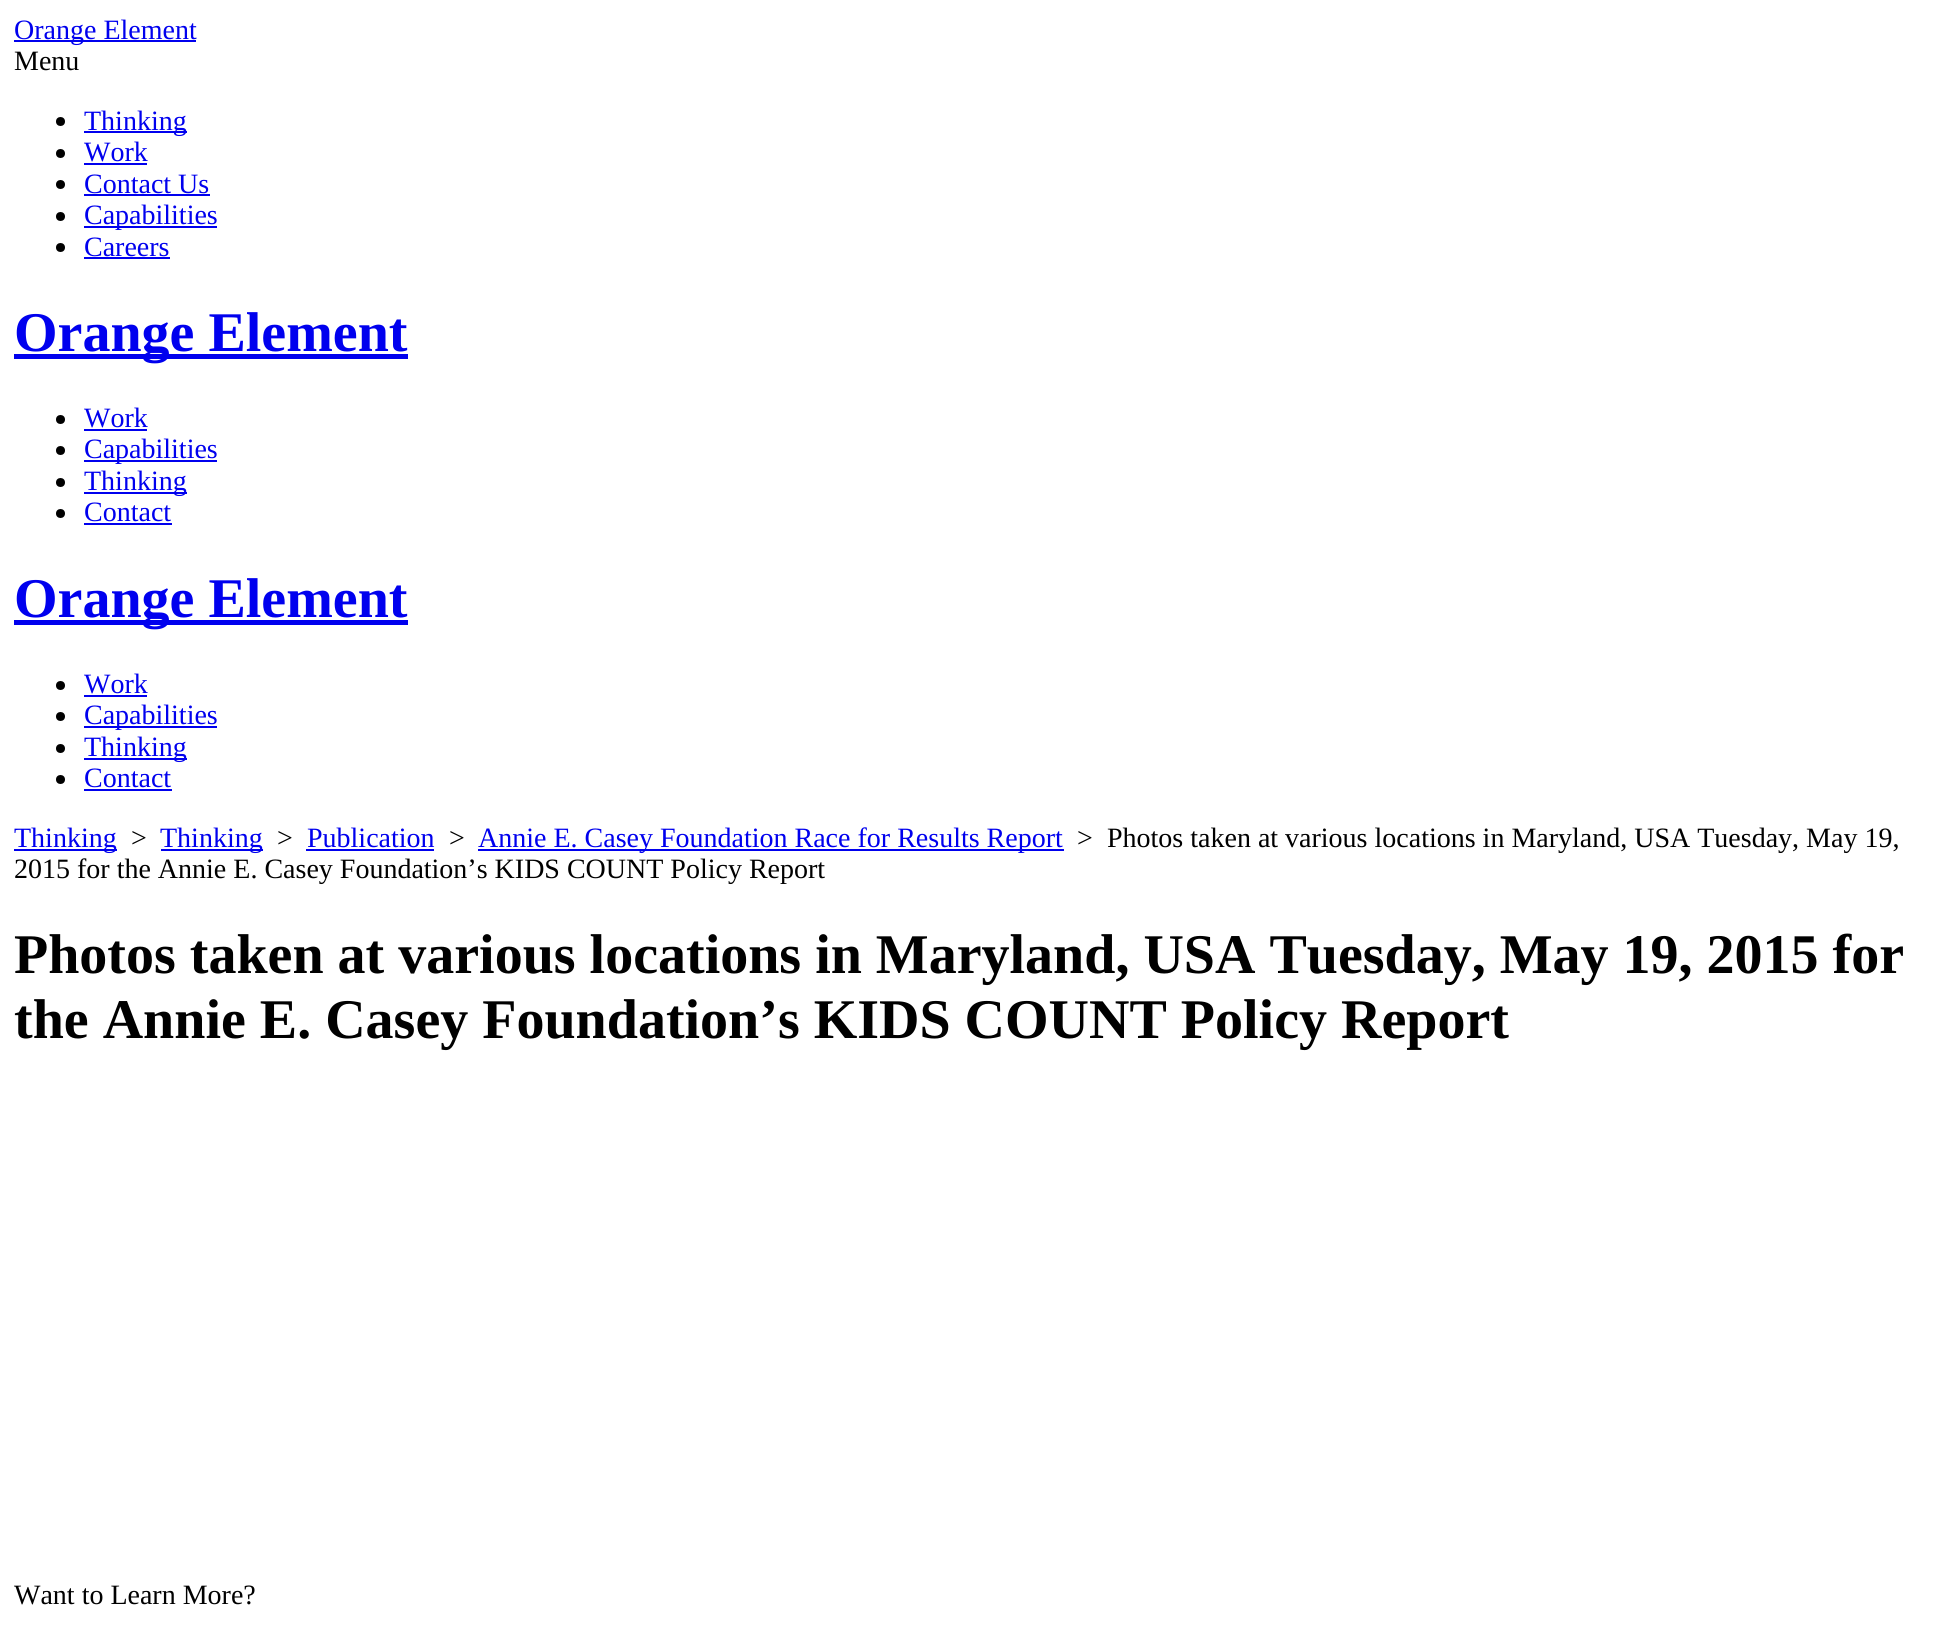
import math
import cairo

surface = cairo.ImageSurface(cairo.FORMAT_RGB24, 1960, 1644)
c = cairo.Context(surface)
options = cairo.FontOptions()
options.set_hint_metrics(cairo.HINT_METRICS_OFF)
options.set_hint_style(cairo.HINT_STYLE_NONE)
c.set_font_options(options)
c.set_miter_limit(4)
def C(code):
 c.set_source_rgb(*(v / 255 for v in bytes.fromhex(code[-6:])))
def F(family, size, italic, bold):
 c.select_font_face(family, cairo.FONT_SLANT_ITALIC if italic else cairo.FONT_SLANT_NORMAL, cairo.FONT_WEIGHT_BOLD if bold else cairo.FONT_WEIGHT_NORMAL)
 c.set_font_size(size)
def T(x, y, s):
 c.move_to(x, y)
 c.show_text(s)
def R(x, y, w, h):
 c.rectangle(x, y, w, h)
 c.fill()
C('ffffff')
c.paint()
C('0000ee')
R(14,40,182,2)
F('Liberation Serif',28,0,0)
T(14,39,'Orange Element')
C('000000')
T(14,70,'Menu')
c.new_path()
c.arc(60.5,121.5,4.5,0,2 * math.pi)
c.fill()
C('0000ee')
R(84,131,103,2)
T(84,130,'Thinking')
C('000000')
c.new_path()
c.arc(60.5,153.5,4.5,0,2 * math.pi)
c.fill()
C('0000ee')
T(84,161,'Work')
R(84,163,63,2)
C('000000')
c.new_path()
c.arc(60.5,184.5,4.5,0,2 * math.pi)
c.fill()
C('0000ee')
T(84,193,'Contact Us')
R(84,194,126,2)
C('000000')
c.new_path()
c.arc(60.5,216.5,4.5,0,2 * math.pi)
c.fill()
C('0000ee')
R(84,226,133,2)
T(84,224,'Capabilities')
C('000000')
c.new_path()
c.arc(60.5,247.5,4.5,0,2 * math.pi)
c.fill()
C('0000ee')
T(84,256,'Careers')
R(84,257,86,2)
R(14,354,394,5)
F('Liberation Serif',56,0,1)
T(14,351,'Orange Element')
C('000000')
c.new_path()
c.arc(60.5,419.5,4.5,0,2 * math.pi)
c.fill()
F('Liberation Serif',28,0,0)
C('0000ee')
T(84,427,'Work')
R(84,429,63,2)
C('000000')
c.new_path()
c.arc(60.5,450.5,4.5,0,2 * math.pi)
c.fill()
C('0000ee')
R(84,460,133,2)
T(84,458,'Capabilities')
C('000000')
c.new_path()
c.arc(60.5,482.5,4.5,0,2 * math.pi)
c.fill()
C('0000ee')
R(84,492,103,2)
T(84,490,'Thinking')
C('000000')
c.new_path()
c.arc(60.5,513.5,4.5,0,2 * math.pi)
c.fill()
C('0000ee')
T(84,521,'Contact')
R(84,523,88,2)
R(14,620,394,5)
F('Liberation Serif',56,0,1)
T(14,617,'Orange Element')
C('000000')
c.new_path()
c.arc(60.5,685.5,4.5,0,2 * math.pi)
c.fill()
F('Liberation Serif',28,0,0)
C('0000ee')
T(84,693,'Work')
R(84,695,63,2)
C('000000')
c.new_path()
c.arc(60.5,716.5,4.5,0,2 * math.pi)
c.fill()
C('0000ee')
R(84,726,133,2)
T(84,724,'Capabilities')
C('000000')
c.new_path()
c.arc(60.5,748.5,4.5,0,2 * math.pi)
c.fill()
C('0000ee')
R(84,758,103,2)
T(84,756,'Thinking')
C('000000')
c.new_path()
c.arc(60.5,779.5,4.5,0,2 * math.pi)
c.fill()
C('0000ee')
T(84,787,'Contact')
R(84,789,88,2)
R(14,849,103,2)
T(14,847,'Thinking')
C('000000')
T(131,847,'>')
C('0000ee')
R(161,849,102,2)
T(160,847,'Thinking')
C('000000')
T(277,847,'>')
C('0000ee')
T(307,847,'Publication')
R(306,849,128,2)
C('000000')
T(449,847,'>')
C('0000ee')
R(478,849,586,2)
T(478,847,'Annie E. Casey Foundation Race for Results Report')
C('000000')
T(1077,847,'>')
T(1107,847,'Photos taken at various locations in Maryland, USA Tuesday, May 19,')
T(14,878,'2015 for the Annie E. Casey Foundation’s KIDS COUNT Policy Report')
F('Liberation Serif',56,0,1)
T(14,973,'Photos taken at various locations in Maryland, USA Tuesday, May 19, 2015 for')
T(14,1038,'the Annie E. Casey Foundation’s KIDS COUNT Policy Report')
F('Liberation Serif',28,0,0)
T(14,1604,'Want to Learn More?')
surface.write_to_png('o.png')
